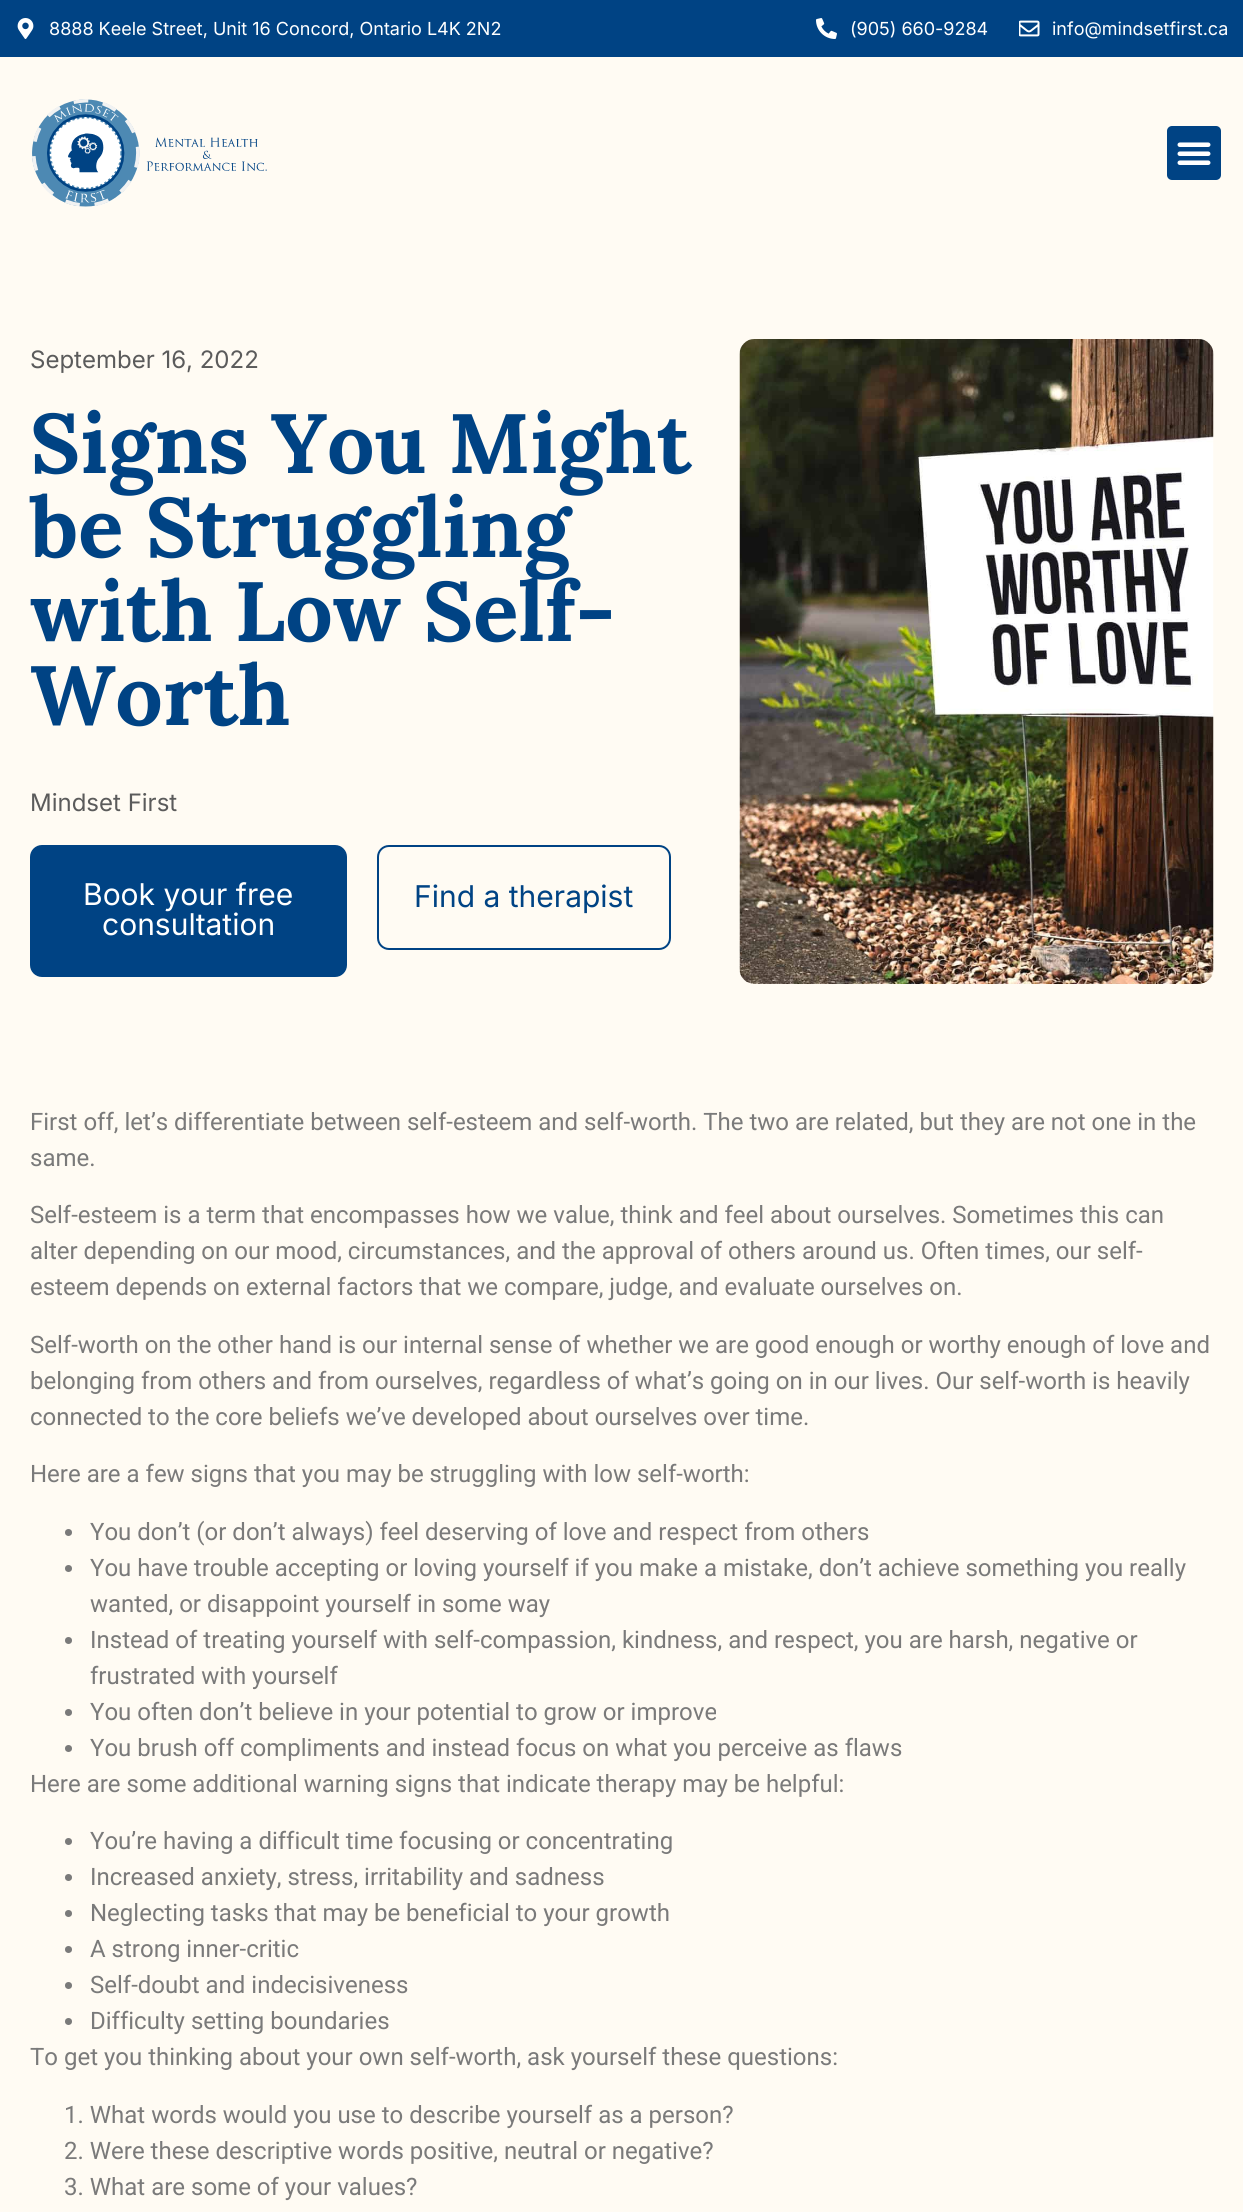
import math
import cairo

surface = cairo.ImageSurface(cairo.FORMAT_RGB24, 1243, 2212)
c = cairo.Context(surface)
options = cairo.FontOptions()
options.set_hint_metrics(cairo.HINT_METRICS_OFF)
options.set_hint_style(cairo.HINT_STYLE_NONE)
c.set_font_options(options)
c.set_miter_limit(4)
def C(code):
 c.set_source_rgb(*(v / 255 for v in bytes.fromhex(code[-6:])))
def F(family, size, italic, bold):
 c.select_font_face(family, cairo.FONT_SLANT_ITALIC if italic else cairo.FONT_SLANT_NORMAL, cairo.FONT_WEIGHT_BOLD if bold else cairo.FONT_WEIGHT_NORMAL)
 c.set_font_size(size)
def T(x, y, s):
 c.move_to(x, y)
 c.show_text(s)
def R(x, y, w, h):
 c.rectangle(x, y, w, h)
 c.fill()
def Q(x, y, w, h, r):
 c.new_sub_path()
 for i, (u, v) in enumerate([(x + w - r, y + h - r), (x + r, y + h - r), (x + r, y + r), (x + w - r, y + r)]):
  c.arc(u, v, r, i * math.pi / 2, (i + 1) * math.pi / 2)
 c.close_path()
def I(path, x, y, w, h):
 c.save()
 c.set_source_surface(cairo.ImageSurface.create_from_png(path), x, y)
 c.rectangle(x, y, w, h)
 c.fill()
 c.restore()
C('004384')
c.paint()
I('1.png',17,18,17,21)
F('Inter',18,0,0)
C('ffffff')
T(49,35,'8888 Keele Street, Unit 16 Concord, Ontario L4K 2N2')
I('2.png',816,18,21,21)
T(850,35,'(905) 660-9284')
I('3.png',1019,20,21,17)
T(1052,35,'info@mindsetfirst.ca')
C('fffbf3')
R(0,57,1243,2155)
I('4.png',32,99,235,108)
C('004384')
Q(1167,126,54,54,5)
c.fill()
I('5.png',1177,142,34,23)
F('Inter',24,0,0)
C('5b5b5b')
T(30,368,'September 16, 2022')
F('Lora',84,0,1)
C('004384')
T(30,473,'Signs You Might')
T(30,557,'be Struggling')
T(30,641,'with Low Self-')
T(30,725,'Worth')
F('Inter',24,0,0)
C('5b5b5b')
T(30,811,'Mindset First')
C('004384')
Q(30,845,317,132,12)
c.fill()
F('Inter',30,0,0)
C('ffffff')
T(83,905,'Book your free')
T(102,935,'consultation')
Q(378,846,292,103,11)
C('004384')
c.stroke()
T(414,907,'Find a therapist')
I('6.png',739,339,475,645)
F('Roboto',24,0,0)
C('7a7a7a')
T(30,1130,'First off, let’s differentiate between self-esteem and self-worth. The two are related, but they are not one in the')
T(30,1166,'same.')
T(30,1223,'Self-esteem is a term that encompasses how we value, think and feel about ourselves. Sometimes this can')
T(30,1259,'alter depending on our mood, circumstances, and the approval of others around us. Often times, our self-')
T(30,1295,'esteem depends on external factors that we compare, judge, and evaluate ourselves on.')
T(30,1353,'Self-worth on the other hand is our internal sense of whether we are good enough or worthy enough of love and')
T(30,1389,'belonging from others and from ourselves, regardless of what’s going on in our lives. Our self-worth is heavily')
T(30,1425,'connected to the core beliefs we’ve developed about ourselves over time.')
T(30,1482,'Here are a few signs that you may be struggling with low self-worth:')
c.new_path()
c.arc(68.5,1532.5,3.5,0,2 * math.pi)
c.fill()
T(90,1540,'You don’t (or don’t always) feel deserving of love and respect from others')
c.new_path()
c.arc(68.5,1568.5,3.5,0,2 * math.pi)
c.fill()
T(90,1576,'You have trouble accepting or loving yourself if you make a mistake, don’t achieve something you really')
T(90,1612,'wanted, or disappoint yourself in some way')
c.new_path()
c.arc(68.5,1640.5,3.5,0,2 * math.pi)
c.fill()
T(90,1648,'Instead of treating yourself with self-compassion, kindness, and respect, you are harsh, negative or')
T(90,1684,'frustrated with yourself')
c.new_path()
c.arc(68.5,1712.5,3.5,0,2 * math.pi)
c.fill()
T(90,1720,'You often don’t believe in your potential to grow or improve')
c.new_path()
c.arc(68.5,1748.5,3.5,0,2 * math.pi)
c.fill()
T(90,1756,'You brush off compliments and instead focus on what you perceive as flaws')
T(30,1792,'Here are some additional warning signs that indicate therapy may be helpful:')
c.new_path()
c.arc(68.5,1841.5,3.5,0,2 * math.pi)
c.fill()
T(90,1849,'You’re having a difficult time focusing or concentrating')
c.new_path()
c.arc(68.5,1877.5,3.5,0,2 * math.pi)
c.fill()
T(90,1885,'Increased anxiety, stress, irritability and sadness')
c.new_path()
c.arc(68.5,1913.5,3.5,0,2 * math.pi)
c.fill()
T(90,1921,'Neglecting tasks that may be beneficial to your growth')
c.new_path()
c.arc(68.5,1949.5,3.5,0,2 * math.pi)
c.fill()
T(90,1957,'A strong inner-critic')
c.new_path()
c.arc(68.5,1985.5,3.5,0,2 * math.pi)
c.fill()
T(90,1993,'Self-doubt and indecisiveness')
c.new_path()
c.arc(68.5,2021.5,3.5,0,2 * math.pi)
c.fill()
T(90,2029,'Difficulty setting boundaries')
T(30,2065,'To get you thinking about your own self-worth, ask yourself these questions:')
T(64,2123,'1. What words would you use to describe yourself as a person?')
T(64,2159,'2. Were these descriptive words positive, neutral or negative?')
T(64,2195,'3. What are some of your values?')
surface.write_to_png('o.png')
